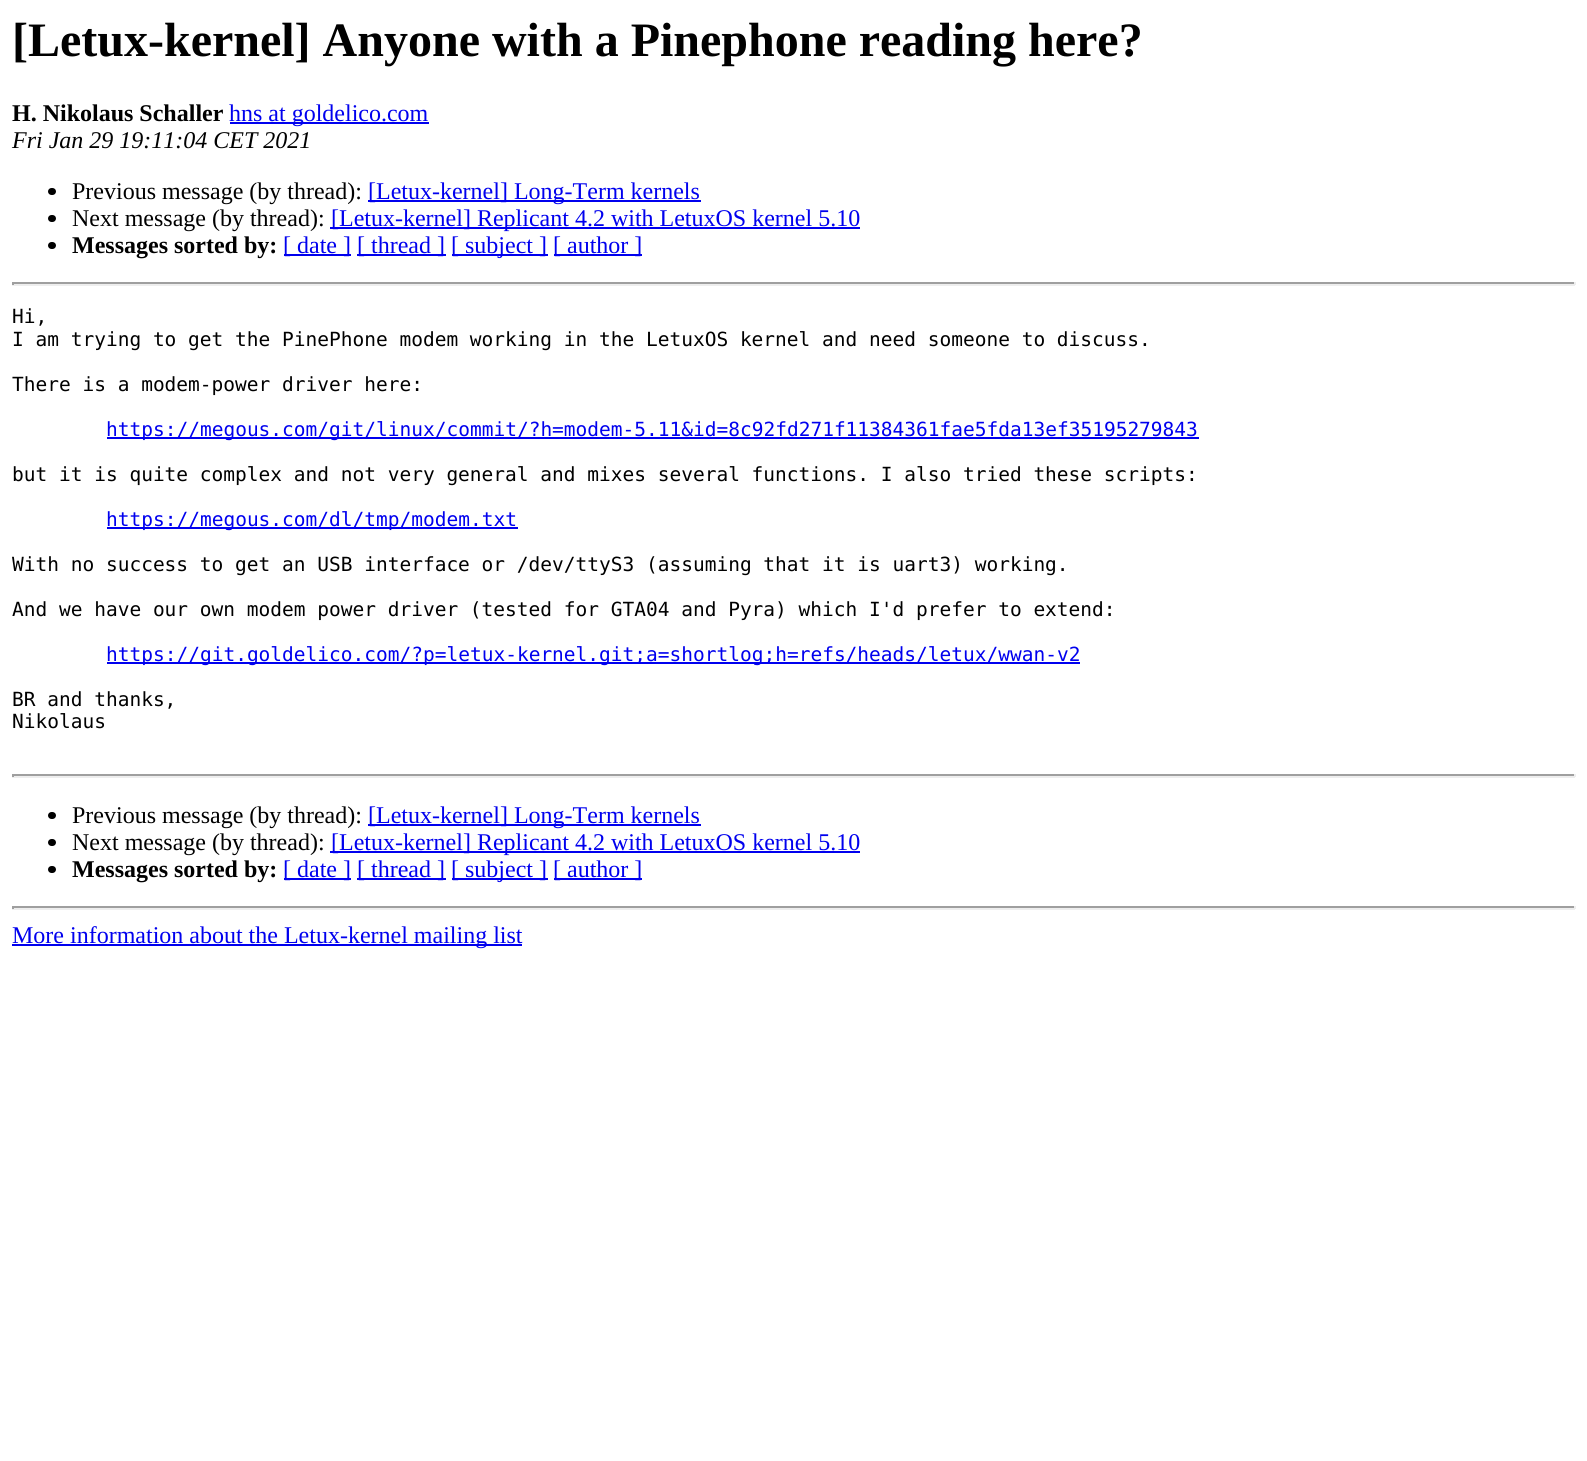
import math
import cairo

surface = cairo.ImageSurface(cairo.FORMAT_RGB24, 1587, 1461)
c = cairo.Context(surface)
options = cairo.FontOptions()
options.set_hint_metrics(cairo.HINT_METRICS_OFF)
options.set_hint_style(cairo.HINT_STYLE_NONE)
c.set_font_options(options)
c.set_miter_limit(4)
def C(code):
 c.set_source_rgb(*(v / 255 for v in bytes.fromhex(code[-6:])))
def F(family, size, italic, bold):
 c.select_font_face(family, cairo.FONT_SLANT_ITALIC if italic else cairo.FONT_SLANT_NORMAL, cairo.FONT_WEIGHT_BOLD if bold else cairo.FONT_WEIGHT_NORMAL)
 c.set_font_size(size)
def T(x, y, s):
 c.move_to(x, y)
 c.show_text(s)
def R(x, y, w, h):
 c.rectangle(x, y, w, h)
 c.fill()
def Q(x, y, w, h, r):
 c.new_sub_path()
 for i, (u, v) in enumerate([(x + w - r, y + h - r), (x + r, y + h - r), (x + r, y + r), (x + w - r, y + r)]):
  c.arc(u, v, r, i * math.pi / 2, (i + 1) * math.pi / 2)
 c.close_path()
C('ffffff')
c.paint()
F('Liberation Serif',48,0,1)
C('000000')
T(12,56,'[Letux-kernel] Anyone with a Pinephone reading here?')
F('Liberation Serif',24,0,1)
T(12,121,'H. Nikolaus Schaller')
C('0000ee')
R(230,122,199,2)
F('Liberation Serif',24,0,0)
T(229,121,'hns at goldelico.com')
F('Liberation Serif',24,1,0)
C('000000')
T(12,148,'Fri Jan 29 19:11:04 CET 2021')
Q(48,188,8,7,3.5)
c.fill()
F('Liberation Serif',24,0,0)
T(72,199,'Previous message (by thread):')
C('0000ee')
R(368,200,333,2)
T(368,199,'[Letux-kernel] Long-Term kernels')
C('000000')
Q(48,215,8,7,3.5)
c.fill()
T(72,226,'Next message (by thread):')
C('0000ee')
R(330,227,530,2)
T(331,226,'[Letux-kernel] Replicant 4.2 with LetuxOS kernel 5.10')
C('000000')
Q(48,242,8,7,3.5)
c.fill()
F('Liberation Serif',24,0,1)
T(72,253,'Messages sorted by:')
C('0000ee')
R(284,254,67,2)
F('Liberation Serif',24,0,0)
T(283,253,'[ date ]')
R(357,254,89,2)
T(357,253,'[ thread ]')
R(452,254,96,2)
T(451,253,'[ subject ]')
R(554,254,88,2)
T(553,253,'[ author ]')
C('9f9f9f')
R(12,282,1563,2)
C('eeeeee')
R(1574,282,2,3)
R(12,284,1563,2)
C('9f9f9f')
R(12,282,2,3)
F('DejaVu Sans Mono',19.5,0,0)
C('000000')
T(12,323,'Hi,')
T(12,346,'I am trying to get the PinePhone modem working in the LetuxOS kernel and need someone to discuss.')
T(12,391,'There is a modem-power driver here:')
C('0000ee')
R(107,437,1092,2)
T(106,436,'https://megous.com/git/linux/commit/?h=modem-5.11&id=8c92fd271f11384361fae5fda13ef35195279843')
C('000000')
T(12,481,'but it is quite complex and not very general and mixes several functions. I also tried these scripts:')
C('0000ee')
R(107,527,411,2)
T(106,526,'https://megous.com/dl/tmp/modem.txt')
C('000000')
T(12,571,'With no success to get an USB interface or /dev/ttyS3 (assuming that it is uart3) working.')
T(12,616,'And we have our own modem power driver (tested for GTA04 and Pyra) which I\'d prefer to extend:')
C('0000ee')
R(107,662,973,2)
T(106,661,'https://git.goldelico.com/?p=letux-kernel.git;a=shortlog;h=refs/heads/letux/wwan-v2')
C('000000')
T(12,706,'BR and thanks,')
T(12,728,'Nikolaus')
C('9f9f9f')
R(12,774,1563,2)
C('eeeeee')
R(1574,774,2,3)
R(12,776,1563,2)
C('9f9f9f')
R(12,774,2,3)
C('000000')
Q(48,812,8,7,3.5)
c.fill()
F('Liberation Serif',24,0,0)
T(72,823,'Previous message (by thread):')
C('0000ee')
R(368,824,333,2)
T(368,823,'[Letux-kernel] Long-Term kernels')
C('000000')
Q(48,839,8,7,3.5)
c.fill()
T(72,850,'Next message (by thread):')
C('0000ee')
R(330,851,530,2)
T(331,850,'[Letux-kernel] Replicant 4.2 with LetuxOS kernel 5.10')
C('000000')
Q(48,866,8,7,3.5)
c.fill()
F('Liberation Serif',24,0,1)
T(72,877,'Messages sorted by:')
C('0000ee')
R(284,878,67,2)
F('Liberation Serif',24,0,0)
T(283,877,'[ date ]')
R(357,878,89,2)
T(357,877,'[ thread ]')
R(452,878,96,2)
T(451,877,'[ subject ]')
R(554,878,88,2)
T(553,877,'[ author ]')
C('9f9f9f')
R(12,906,1563,2)
C('eeeeee')
R(1574,906,2,3)
R(12,908,1563,2)
C('9f9f9f')
R(12,906,2,3)
C('0000ee')
R(12,944,510,2)
T(12,943,'More information about the Letux-kernel mailing list')
surface.write_to_png('o.png')
